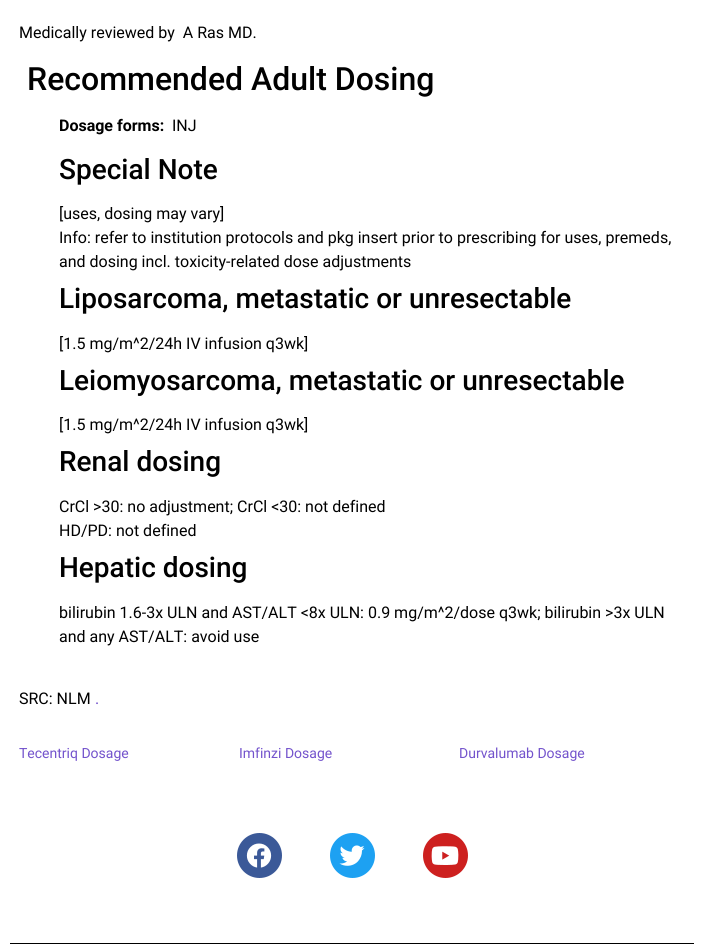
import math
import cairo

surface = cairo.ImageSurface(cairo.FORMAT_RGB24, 704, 948)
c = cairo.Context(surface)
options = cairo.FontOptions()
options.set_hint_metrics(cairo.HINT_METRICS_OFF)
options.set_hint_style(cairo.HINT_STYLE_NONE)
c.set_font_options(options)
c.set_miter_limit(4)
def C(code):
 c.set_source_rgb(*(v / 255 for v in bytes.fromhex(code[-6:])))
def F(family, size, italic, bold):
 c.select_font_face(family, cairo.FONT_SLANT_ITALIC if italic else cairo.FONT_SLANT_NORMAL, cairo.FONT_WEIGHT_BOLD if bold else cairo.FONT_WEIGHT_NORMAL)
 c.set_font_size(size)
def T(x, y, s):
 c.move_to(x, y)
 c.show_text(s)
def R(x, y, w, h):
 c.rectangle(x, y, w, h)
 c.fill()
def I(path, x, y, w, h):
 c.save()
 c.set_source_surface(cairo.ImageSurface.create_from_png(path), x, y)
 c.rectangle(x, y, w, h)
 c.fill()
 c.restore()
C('ffffff')
c.paint()
F('Roboto',16,0,0)
C('000000')
T(19,38,'Medically reviewed by  A Ras MD.')
F('Roboto Medium',32,0,0)
T(27,90,'Recommended Adult Dosing')
F('Roboto',16,0,1)
T(59,131,'Dosage forms:')
F('Roboto',16,0,0)
T(172,131,'INJ')
F('Roboto Medium',28,0,0)
T(59,179,'Special Note')
F('Roboto',16,0,0)
T(59,219,'[uses, dosing may vary]')
T(59,243,'Info: refer to institution protocols and pkg insert prior to prescribing for uses, premeds,')
T(59,267,'and dosing incl. toxicity-related dose adjustments')
F('Roboto Medium',28,0,0)
T(59,308,'Liposarcoma, metastatic or unresectable')
F('Roboto',16,0,0)
T(59,349,'[1.5 mg/m^2/24h IV infusion q3wk]')
F('Roboto Medium',28,0,0)
T(59,390,'Leiomyosarcoma, metastatic or unresectable')
F('Roboto',16,0,0)
T(59,430,'[1.5 mg/m^2/24h IV infusion q3wk]')
F('Roboto Medium',28,0,0)
T(59,471,'Renal dosing')
F('Roboto',16,0,0)
T(59,512,'CrCl >30: no adjustment; CrCl <30: not defined')
T(59,536,'HD/PD: not defined')
F('Roboto Medium',28,0,0)
T(59,577,'Hepatic dosing')
F('Roboto',16,0,0)
T(59,618,'bilirubin 1.6-3x ULN and AST/ALT <8x ULN: 0.9 mg/m^2/dose q3wk; bilirubin >3x ULN')
T(59,642,'and any AST/ALT: avoid use')
T(19,704,'SRC: NLM')
C('7353cc')
T(95,704,'.')
F('Roboto',14,0,0)
T(19,758,'Tecentriq Dosage')
T(239,758,'Imfinzi Dosage')
T(459,758,'Durvalumab Dosage')
C('3b5998')
c.new_path()
c.arc(259.5,855.5,22.5,0,2 * math.pi)
c.fill()
I('1.png',246,843,26,25)
C('1da1f2')
c.arc(352.5,855.5,22.5,0,2 * math.pi)
c.fill()
I('2.png',339,845,26,21)
C('cd201f')
c.arc(445.5,855.5,22.5,0,2 * math.pi)
c.fill()
I('3.png',431,846,28,19)
C('000000')
R(10,943,684,1)
surface.write_to_png('o.png')
